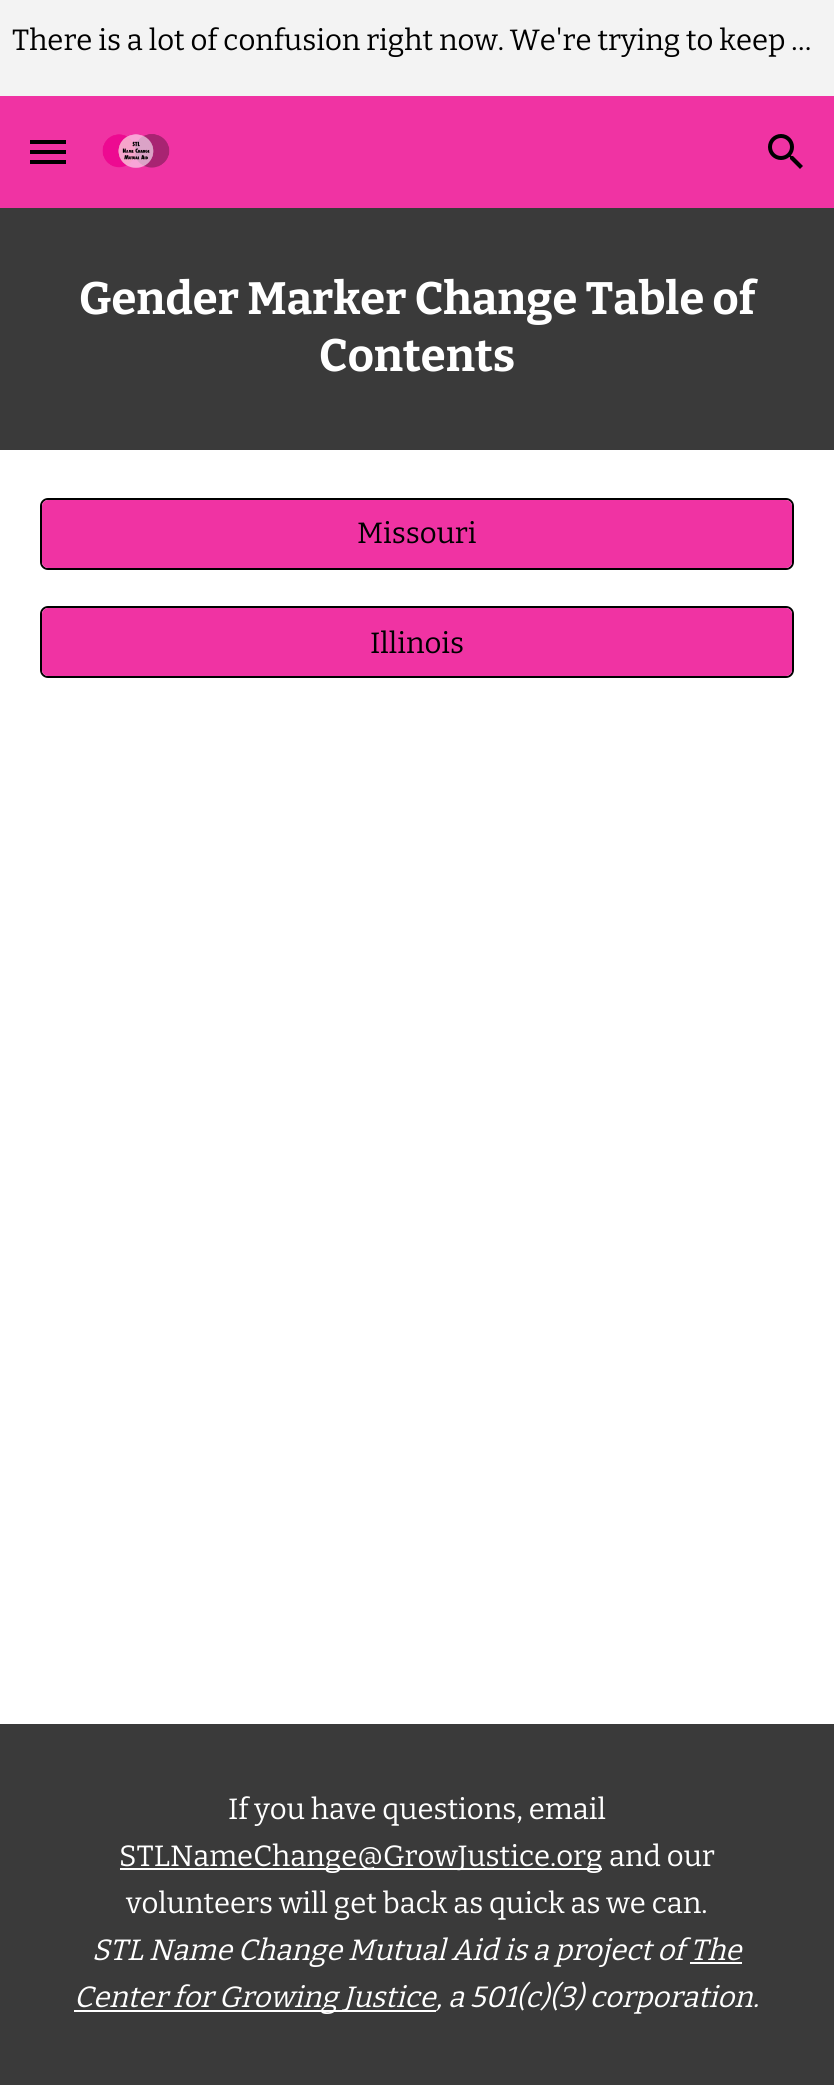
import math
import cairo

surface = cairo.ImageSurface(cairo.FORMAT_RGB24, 834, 2085)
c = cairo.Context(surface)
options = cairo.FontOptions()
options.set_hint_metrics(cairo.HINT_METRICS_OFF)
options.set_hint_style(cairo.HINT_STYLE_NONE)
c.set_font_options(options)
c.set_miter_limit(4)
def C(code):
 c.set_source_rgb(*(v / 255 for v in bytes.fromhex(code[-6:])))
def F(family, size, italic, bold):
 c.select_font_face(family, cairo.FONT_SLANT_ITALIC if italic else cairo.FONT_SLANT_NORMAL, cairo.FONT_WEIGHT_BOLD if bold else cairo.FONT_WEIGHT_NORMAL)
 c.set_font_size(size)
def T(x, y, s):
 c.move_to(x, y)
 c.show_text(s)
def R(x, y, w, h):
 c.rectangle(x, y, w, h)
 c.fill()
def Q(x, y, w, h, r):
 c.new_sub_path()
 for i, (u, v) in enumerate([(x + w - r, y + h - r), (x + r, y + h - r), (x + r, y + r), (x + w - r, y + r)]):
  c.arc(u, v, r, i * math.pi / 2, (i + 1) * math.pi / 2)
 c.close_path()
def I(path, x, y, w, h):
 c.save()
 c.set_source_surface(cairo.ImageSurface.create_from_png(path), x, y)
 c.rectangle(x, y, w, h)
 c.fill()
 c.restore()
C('ffffff')
c.paint()
C('f3f3f3')
R(0,0,834,96)
F('Bitter',29.3,0,0)
C('000000')
T(12,50,'There is a lot of confusion right now. We\'re trying to keep …')
C('f033a3')
R(0,96,834,112)
I('1.png',102,134,68,34)
I('2.png',768,134,35,35)
C('000000')
R(30,140,36,4)
R(30,150,36,4)
R(30,160,36,4)
C('3a3a3a')
R(0,208,834,242)
F('Bitter',45.3,0,1)
C('ffffff')
T(79,314,'Gender Marker Change Table of')
T(319,371,'Contents')
Q(41,499,752,70,7)
C('000000')
c.stroke()
C('f033a3')
Q(42,500,750,68,6)
c.fill()
F('Bitter',29.3,0,0)
C('000000')
T(357,543,'Missouri')
Q(41,607,752,70,7)
c.stroke()
C('f033a3')
Q(42,608,750,68,6)
c.fill()
C('000000')
T(370,653,'Illinois')
C('3a3a3a')
R(0,1724,834,361)
C('ffffff')
T(228,1819,'If you have questions, email')
R(120,1868,482,2)
T(119,1866,'STLNameChange@GrowJustice.org')
T(609,1866,'and our')
T(126,1913,'volunteers will get back as quick as we can.')
F('Bitter',29.3,1,0)
T(92,1960,'STL Name Change Mutual Aid is a project of')
T(690,1960,'The')
R(690,1962,52,2)
R(74,2010,362,2)
T(74,2007,'Center for Growing Justice, a 501(c)(3) corporation.')
surface.write_to_png('o.png')
